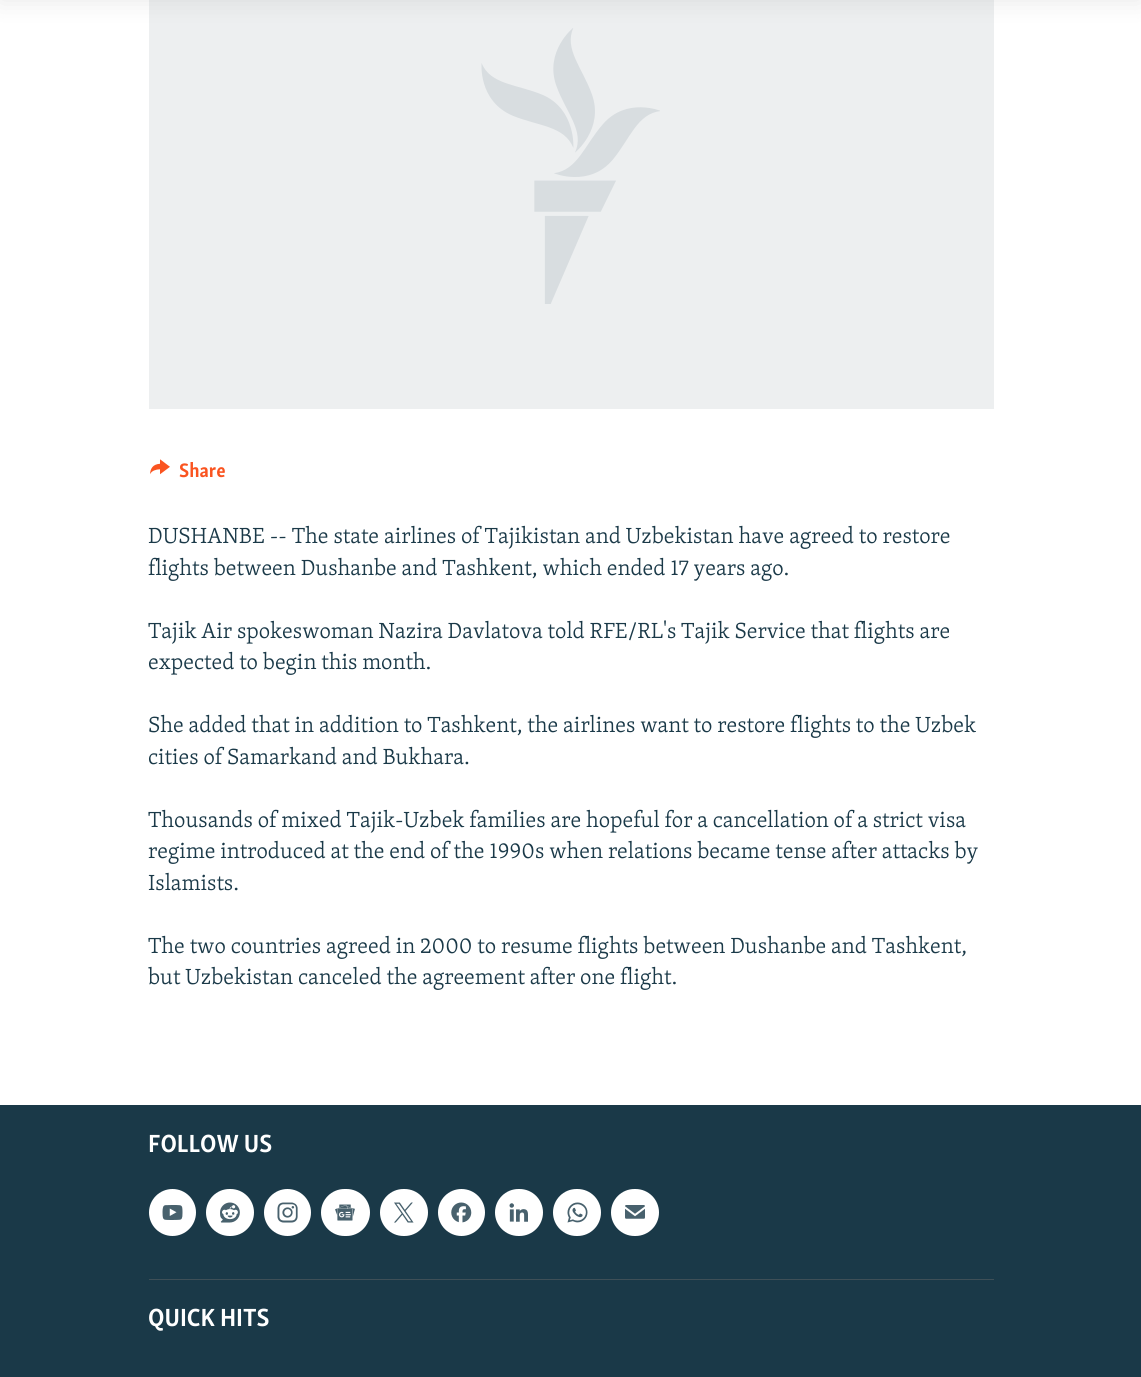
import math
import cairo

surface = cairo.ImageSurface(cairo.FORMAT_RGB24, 1141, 1377)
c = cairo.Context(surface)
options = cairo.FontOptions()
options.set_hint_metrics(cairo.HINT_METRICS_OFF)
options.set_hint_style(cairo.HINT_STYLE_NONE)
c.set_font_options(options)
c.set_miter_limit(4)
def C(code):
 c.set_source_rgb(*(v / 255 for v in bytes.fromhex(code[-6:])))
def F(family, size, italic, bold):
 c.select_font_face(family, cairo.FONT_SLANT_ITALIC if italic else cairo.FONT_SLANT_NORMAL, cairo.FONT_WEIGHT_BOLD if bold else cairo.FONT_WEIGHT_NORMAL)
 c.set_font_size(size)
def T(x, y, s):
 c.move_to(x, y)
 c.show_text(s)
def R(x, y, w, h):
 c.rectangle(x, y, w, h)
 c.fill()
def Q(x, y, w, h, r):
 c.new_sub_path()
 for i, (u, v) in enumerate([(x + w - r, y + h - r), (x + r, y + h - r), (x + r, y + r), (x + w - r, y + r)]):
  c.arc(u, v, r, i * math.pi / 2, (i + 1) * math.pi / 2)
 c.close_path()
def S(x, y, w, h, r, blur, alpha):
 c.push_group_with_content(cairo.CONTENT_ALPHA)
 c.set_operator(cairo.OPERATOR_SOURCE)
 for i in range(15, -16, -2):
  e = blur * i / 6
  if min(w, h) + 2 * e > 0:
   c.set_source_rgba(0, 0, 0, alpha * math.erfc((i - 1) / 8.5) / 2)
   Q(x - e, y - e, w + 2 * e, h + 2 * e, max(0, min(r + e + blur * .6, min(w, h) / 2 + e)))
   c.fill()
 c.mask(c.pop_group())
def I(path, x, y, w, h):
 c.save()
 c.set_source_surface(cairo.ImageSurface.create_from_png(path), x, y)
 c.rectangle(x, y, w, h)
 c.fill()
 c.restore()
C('ffffff')
c.paint()
C('edeff0')
R(149,0,845,409)
I('1.png',481,28,179,276)
C('000000')
S(0,-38,1141,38,0,12.5,.1)
I('2.png',150,459,20,16)
F('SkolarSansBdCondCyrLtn',20,0,1)
C('fa5420')
T(179,477,'Share')
F('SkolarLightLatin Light',22.5,0,0)
C('1a3948')
T(148,543,'DUSHANBE -- The state airlines of Tajikistan and Uzbekistan have agreed to restore')
T(148,575,'flights between Dushanbe and Tashkent, which ended 17 years ago.')
T(148,638,'Tajik Air spokeswoman Nazira Davlatova told RFE/RL\'s Tajik Service that flights are')
T(148,669,'expected to begin this month.')
T(148,732,'She added that in addition to Tashkent, the airlines want to restore flights to the Uzbek')
T(148,764,'cities of Samarkand and Bukhara.')
T(148,827,'Thousands of mixed Tajik-Uzbek families are hopeful for a cancellation of a strict visa')
T(148,858,'regime introduced at the end of the 1990s when relations became tense after attacks by')
T(148,890,'Islamists.')
T(148,953,'The two countries agreed in 2000 to resume flights between Dushanbe and Tashkent,')
T(148,984,'but Uzbekistan canceled the agreement after one flight.')
R(0,1105,1141,272)
F('SkolarSansBdCondCyrLtn',25.5,0,1)
C('ffffff')
T(148,1152,'FOLLOW US')
c.new_path()
c.arc(172.5,1212.5,23.5,0,2 * math.pi)
c.fill()
I('3.png',162,1205,21,15)
Q(206,1189,48,47,23.5)
c.fill()
I('4.png',220,1202,20,21)
c.arc(287.5,1212.5,23.5,0,2 * math.pi)
c.fill()
I('5.png',277,1202,21,21)
Q(321,1189,49,47,23.5)
c.fill()
I('6.png',335,1204,20,17)
Q(380,1189,48,47,23.5)
c.fill()
I('7.png',394,1202,20,21)
c.arc(461.5,1212.5,23.5,0,2 * math.pi)
c.fill()
I('8.png',451,1202,21,21)
Q(495,1189,48,47,23.5)
c.fill()
I('9.png',509,1203,19,19)
Q(553,1189,48,47,23.5)
c.fill()
I('10.png',567,1202,21,21)
Q(611,1189,48,47,23.5)
c.fill()
I('11.png',625,1205,20,14)
C('3e4f57')
R(149,1279,845,1)
C('ffffff')
T(148,1326,'QUICK HITS')
surface.write_to_png('o.png')
